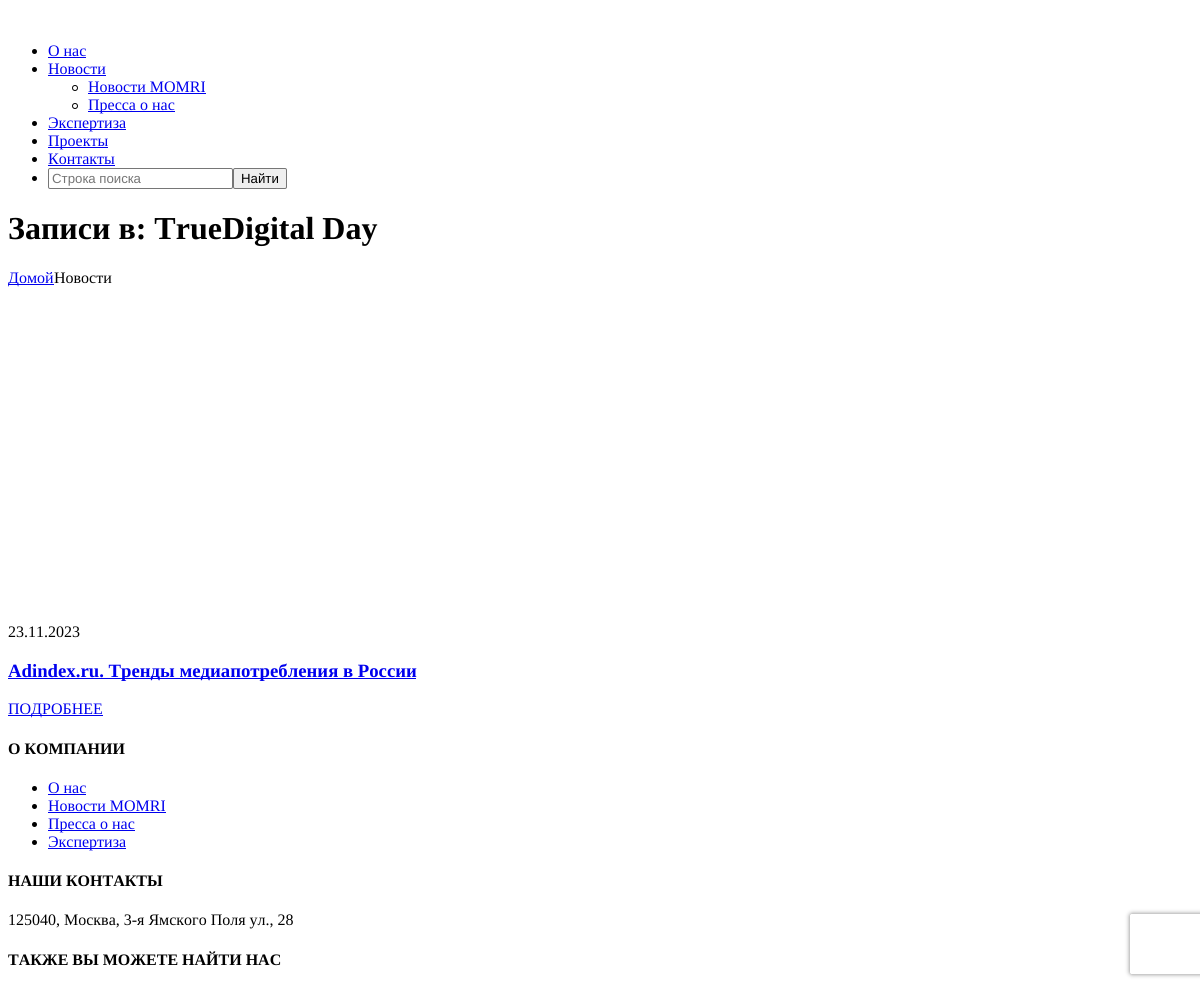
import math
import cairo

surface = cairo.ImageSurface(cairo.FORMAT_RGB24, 1200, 988)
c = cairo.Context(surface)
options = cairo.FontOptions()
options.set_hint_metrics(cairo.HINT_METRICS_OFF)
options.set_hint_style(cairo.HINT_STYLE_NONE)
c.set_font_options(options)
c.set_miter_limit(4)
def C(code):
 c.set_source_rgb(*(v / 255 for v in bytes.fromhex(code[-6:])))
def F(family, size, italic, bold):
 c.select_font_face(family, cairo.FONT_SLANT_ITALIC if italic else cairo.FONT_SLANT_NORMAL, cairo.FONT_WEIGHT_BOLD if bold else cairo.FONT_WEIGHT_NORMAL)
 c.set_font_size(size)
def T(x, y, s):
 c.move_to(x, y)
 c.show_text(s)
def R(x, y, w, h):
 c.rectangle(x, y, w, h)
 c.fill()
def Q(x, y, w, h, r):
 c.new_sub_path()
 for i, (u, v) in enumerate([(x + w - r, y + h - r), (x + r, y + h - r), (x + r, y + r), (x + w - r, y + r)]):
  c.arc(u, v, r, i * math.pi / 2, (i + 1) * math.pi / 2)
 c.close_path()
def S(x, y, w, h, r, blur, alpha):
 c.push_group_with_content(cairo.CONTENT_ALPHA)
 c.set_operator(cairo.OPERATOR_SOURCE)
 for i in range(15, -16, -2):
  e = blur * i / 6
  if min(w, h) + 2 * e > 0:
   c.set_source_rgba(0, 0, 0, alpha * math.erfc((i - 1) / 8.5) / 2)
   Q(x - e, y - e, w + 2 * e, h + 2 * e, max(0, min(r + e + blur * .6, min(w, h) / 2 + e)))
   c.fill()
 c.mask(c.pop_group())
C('ffffff')
c.paint()
C('000000')
c.arc(34.5,51.5,2.5,0,2 * math.pi)
c.fill()
F('Liberation Serif',16,0,0)
C('0000ee')
T(48,56,'О нас')
R(48,57,38,1)
C('000000')
c.new_path()
c.arc(34.5,69.5,2.5,0,2 * math.pi)
c.fill()
C('0000ee')
T(48,74,'Новости')
R(48,75,58,1)
c.new_path()
c.arc(75,88,2.5,0,2 * math.pi)
C('000000')
c.set_line_width(1)
c.stroke()
C('0000ee')
T(88,92,'Новости MOMRI')
R(88,93,118,1)
c.new_path()
c.arc(75,106,2.5,0,2 * math.pi)
C('000000')
c.stroke()
C('0000ee')
R(88,111,87,1)
T(88,110,'Пресса о нас')
C('000000')
c.new_path()
c.arc(34.5,123.5,2.5,0,2 * math.pi)
c.fill()
C('0000ee')
R(48,129,78,1)
T(48,128,'Экспертиза')
C('000000')
c.new_path()
c.arc(34.5,141.5,2.5,0,2 * math.pi)
c.fill()
C('0000ee')
R(48,147,60,1)
T(48,146,'Проекты')
C('000000')
c.new_path()
c.arc(34.5,159.5,2.5,0,2 * math.pi)
c.fill()
C('0000ee')
T(48,164,'Контакты')
R(48,165,67,1)
C('000000')
c.new_path()
c.arc(34.5,178.5,2.5,0,2 * math.pi)
c.fill()
Q(48.5,168.5,184,20,1.5)
C('767676')
c.stroke()
F('Liberation Sans',13.25,0,0)
C('757575')
T(52,183,'Строка поиска')
C('efefef')
Q(233.5,168.5,53,20,1.5)
c.fill_preserve()
C('767676')
c.stroke()
C('000000')
T(241,183,'Найти')
F('Liberation Serif',32,0,1)
T(8,239,'Записи в: TrueDigital Day')
C('0000ee')
R(8,284,46,1)
F('Liberation Serif',16,0,0)
T(8,283,'Домой')
C('000000')
T(54,283,'Новости')
T(8,637,'23.11.2023')
C('0000ee')
R(8,678,408,1)
F('Liberation Serif',18.75,0,1)
T(8,677,'Adindex.ru. Тренды медиапотребления в России')
R(8,715,95,1)
F('Liberation Serif',16,0,0)
T(8,714,'ПОДРОБНЕЕ')
F('Liberation Serif',16,0,1)
C('000000')
T(8,754,'О КОМПАНИИ')
c.new_path()
c.arc(34.5,788.5,2.5,0,2 * math.pi)
c.fill()
F('Liberation Serif',16,0,0)
C('0000ee')
T(48,793,'О нас')
R(48,794,38,1)
C('000000')
c.new_path()
c.arc(34.5,806.5,2.5,0,2 * math.pi)
c.fill()
C('0000ee')
T(48,811,'Новости MOMRI')
R(48,812,118,1)
C('000000')
c.new_path()
c.arc(34.5,824.5,2.5,0,2 * math.pi)
c.fill()
C('0000ee')
R(48,830,87,1)
T(48,829,'Пресса о нас')
C('000000')
c.new_path()
c.arc(34.5,842.5,2.5,0,2 * math.pi)
c.fill()
C('0000ee')
R(48,848,78,1)
T(48,847,'Экспертиза')
F('Liberation Serif',16,0,1)
C('000000')
T(8,886,'НАШИ КОНТАКТЫ')
F('Liberation Serif',16,0,0)
T(8,925,'125040, Москва, 3-я Ямского Поля ул., 28')
F('Liberation Serif',16,0,1)
T(8,965,'ТАКЖЕ ВЫ МОЖЕТЕ НАЙТИ НАС')
c.save()
c.set_fill_rule(cairo.FILL_RULE_EVEN_ODD)
c.new_path()
c.move_to(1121,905)
c.line_to(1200,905)
c.line_to(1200,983)
c.line_to(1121,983)
c.close_path()
c.move_to(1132,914)
c.line_to(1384,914)
c.curve_to(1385,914,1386,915,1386,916)
c.line_to(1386,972)
c.curve_to(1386,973,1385,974,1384,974)
c.line_to(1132,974)
c.curve_to(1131,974,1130,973,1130,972)
c.line_to(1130,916)
c.curve_to(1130,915,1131,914,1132,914)
c.close_path()
c.clip()
C('808080')
S(1130,914,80,60,2,2.5,1)
c.restore()
surface.write_to_png('o.png')
